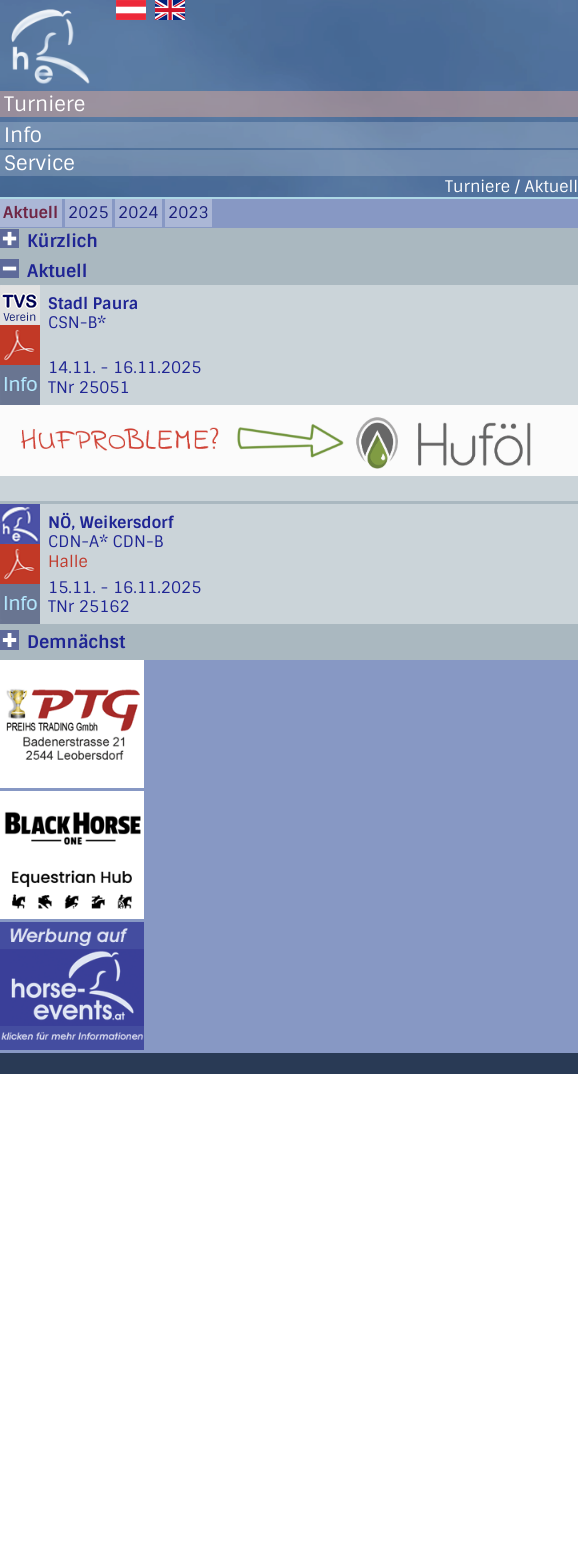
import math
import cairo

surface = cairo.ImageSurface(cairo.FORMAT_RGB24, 578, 1555)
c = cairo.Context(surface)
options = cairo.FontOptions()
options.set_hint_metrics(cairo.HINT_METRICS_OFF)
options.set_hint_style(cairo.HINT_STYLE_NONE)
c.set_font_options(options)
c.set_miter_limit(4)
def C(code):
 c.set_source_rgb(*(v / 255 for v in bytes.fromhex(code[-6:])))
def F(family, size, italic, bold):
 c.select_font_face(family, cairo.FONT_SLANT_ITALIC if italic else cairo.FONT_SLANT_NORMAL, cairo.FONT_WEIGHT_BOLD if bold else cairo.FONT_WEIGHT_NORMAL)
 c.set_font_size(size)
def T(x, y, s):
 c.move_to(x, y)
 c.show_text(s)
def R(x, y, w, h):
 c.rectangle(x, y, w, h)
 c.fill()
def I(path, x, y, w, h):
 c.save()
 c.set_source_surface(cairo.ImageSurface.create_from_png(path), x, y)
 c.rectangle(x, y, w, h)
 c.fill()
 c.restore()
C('ffffff')
c.paint()
I('1.png',0,0,578,197)
I('2.png',11,9,79,75)
I('3.png',116,0,30,20)
I('4.png',155,0,30,20)
c.set_source_rgba(1,0.706,0.588,0.4)
R(0,91,578,26)
F('Sintony',20,0,0)
C('ffffff')
T(4,111,'Turniere')
c.set_source_rgba(1,1,1,0.2)
R(0,122,578,26)
C('ffffff')
T(4,142,'Info')
c.set_source_rgba(1,1,1,0.2)
R(0,150,578,26)
C('ffffff')
T(4,170,'Service')
F('Sintony',16,0,0)
T(445,192,'Turniere / Aktuell')
C('add8e6')
R(0,197,578,2)
C('aab8c0')
R(0,228,578,432)
C('8798c4')
R(0,199,578,29)
C('abb7d6')
R(0,199,62,28)
F('Sintony',16,0,1)
C('6f2544')
T(3,218,'Aktuell')
C('abb7d6')
R(65,199,47,28)
F('Sintony',16,0,0)
C('1a1f7b')
T(68,218,'2025')
C('abb7d6')
R(115,199,47,28)
C('1a1f7b')
T(118,218,'2024')
C('abb7d6')
R(165,199,47,28)
C('1a1f7b')
T(168,218,'2023')
I('5.png',0,229,19,19)
F('Sintony',17.5,0,1)
C('1f2594')
T(27,247,'Kürzlich')
I('6.png',0,259,19,19)
T(27,277,'Aktuell')
C('cbd4d9')
R(0,285,578,120)
I('7.png',0,285,40,40)
I('8.png',0,325,40,40)
I('9.png',0,365,40,40)
F('Sintony',16,0,1)
C('1f2594')
T(48,309,'Stadl Paura')
F('Sintony',16,0,0)
T(48,328,'CSN-B*')
T(48,373,'14.11. - 16.11.2025')
T(48,393,'TNr 25051')
C('cbd4d9')
R(0,476,578,25)
I('10.png',0,405,578,71)
R(40,504,538,120)
I('11.png',0,504,40,40)
I('8.png',0,544,40,40)
I('9.png',0,584,40,40)
F('Sintony',16,0,1)
C('1f2594')
T(48,528,'NÖ, Weikersdorf')
F('Sintony',16,0,0)
T(48,547,'CDN-A* CDN-B')
C('c0392b')
T(48,567,'Halle')
C('1f2594')
T(48,593,'15.11. - 16.11.2025')
T(48,612,'TNr 25162')
I('12.png',0,630,19,20)
F('Sintony',17.5,0,1)
T(27,648,'Demnächst')
C('8798c4')
R(0,660,578,393)
I('13.png',0,660,144,128)
I('14.png',0,791,144,128)
I('15.png',0,922,144,128)
C('293a55')
R(0,1053,578,21)
surface.write_to_png('o.png')
